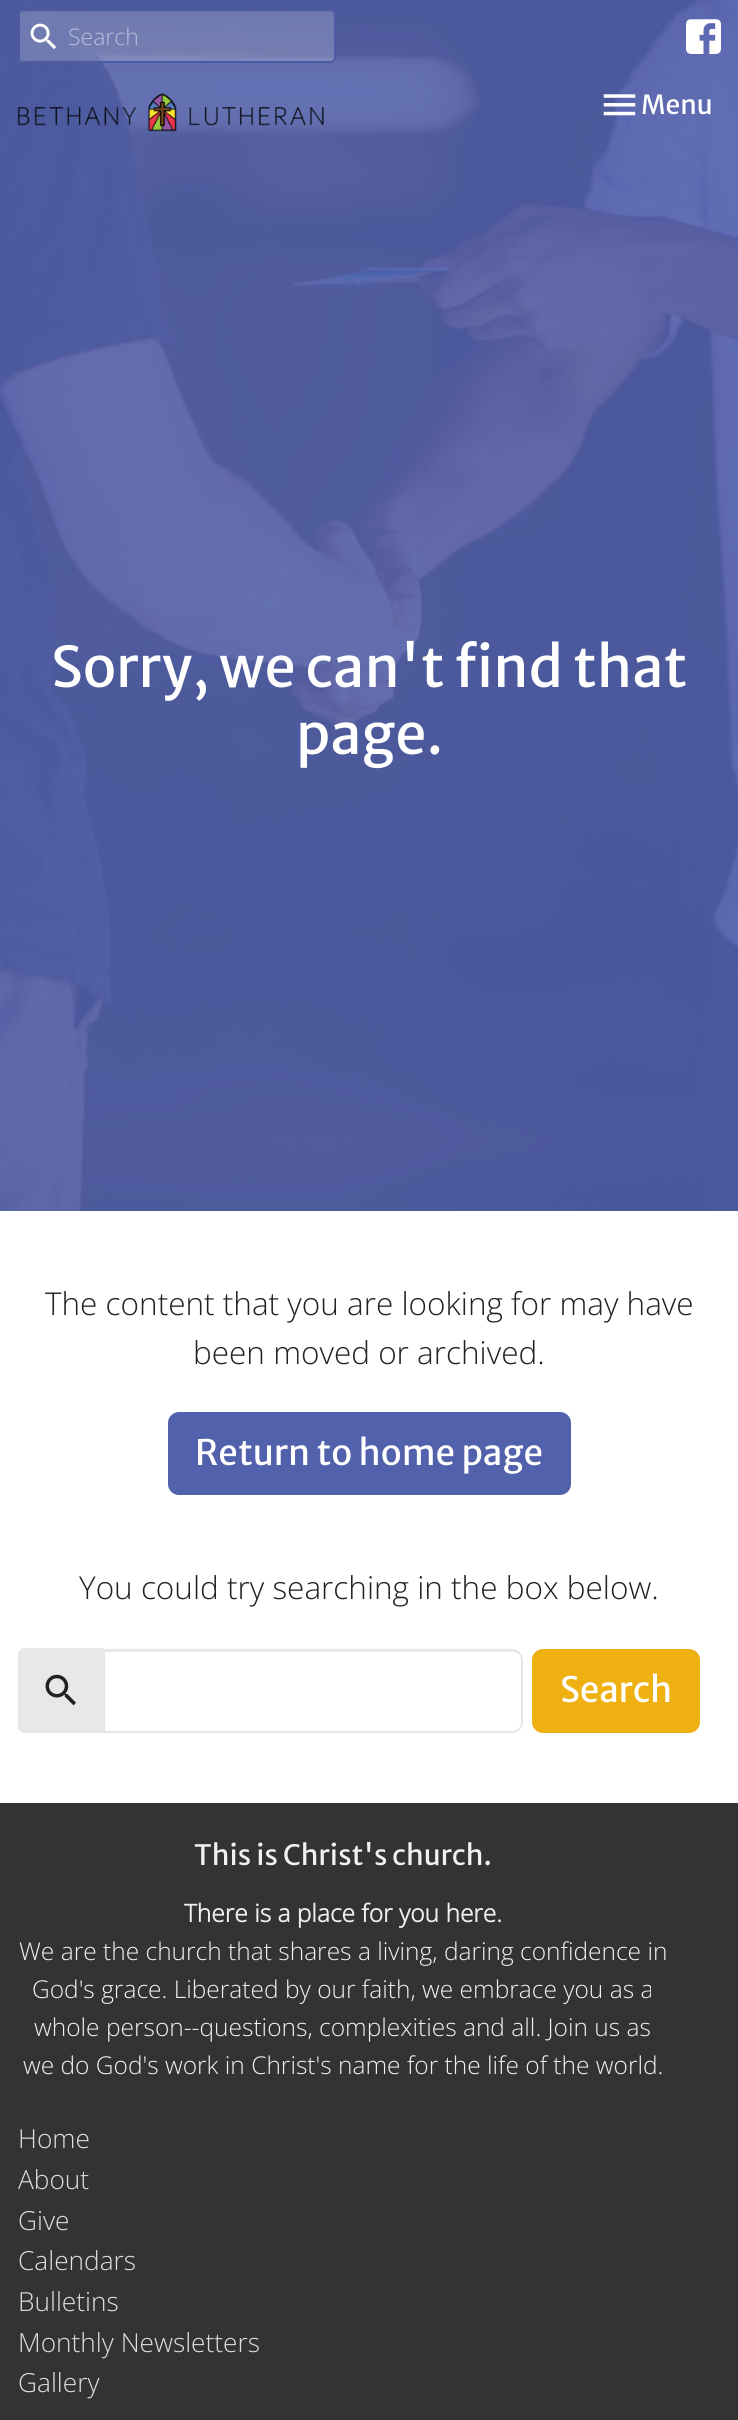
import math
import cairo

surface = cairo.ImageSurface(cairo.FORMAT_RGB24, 738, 2420)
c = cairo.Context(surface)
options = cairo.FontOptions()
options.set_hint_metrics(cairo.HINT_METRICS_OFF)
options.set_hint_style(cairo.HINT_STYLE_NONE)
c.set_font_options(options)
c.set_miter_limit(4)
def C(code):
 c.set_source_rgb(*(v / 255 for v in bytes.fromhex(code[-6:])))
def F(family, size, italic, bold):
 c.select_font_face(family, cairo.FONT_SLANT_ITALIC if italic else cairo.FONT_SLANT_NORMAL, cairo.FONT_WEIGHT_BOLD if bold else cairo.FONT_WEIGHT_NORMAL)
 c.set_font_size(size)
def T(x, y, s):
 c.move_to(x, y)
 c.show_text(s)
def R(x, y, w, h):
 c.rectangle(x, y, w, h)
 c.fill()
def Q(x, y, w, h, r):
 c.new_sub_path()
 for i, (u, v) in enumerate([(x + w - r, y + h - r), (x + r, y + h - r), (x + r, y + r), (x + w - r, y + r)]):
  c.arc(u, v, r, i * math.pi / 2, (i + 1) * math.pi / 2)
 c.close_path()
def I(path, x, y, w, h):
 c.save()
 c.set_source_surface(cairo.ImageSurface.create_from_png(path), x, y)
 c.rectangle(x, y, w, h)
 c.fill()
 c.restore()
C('ffffff')
c.paint()
I('5.png',0,0,738,1211)
c.set_source_rgba(1,1,1,0.2)
Q(18,9,318,54,5)
c.fill()
C('6771a3')
c.new_path()
c.move_to(23,12)
c.line_to(331,12)
c.curve_to(333,12,334,14,334,16)
c.line_to(334,15)
c.curve_to(334,13,332,11,330,11)
c.line_to(23,11)
c.curve_to(21,11,19,13,19,15)
c.line_to(19,16)
c.curve_to(19,14,21,12,23,12)
c.close_path()
c.fill()
Q(19,10,316,52,4)
C('4d5ba2')
c.stroke()
I('1.png',30,23,26,26)
F('Open Sans Light',23,0,0)
C('b8bdd8')
T(68,45,'Search')
I('2.png',686,19,35,35)
I('3.png',17,93,307,39)
I('4.png',603,94,33,22)
F('Merriweather Sans',26.25,0,0)
C('ffffff')
T(641,114,'Menu')
F('Merriweather Sans',56,0,0)
T(51,687,'Sorry, we can\'t find that')
T(296,754,'page.')
F('Open Sans Light',31.5,0,0)
C('222222')
T(45,1315,'The content that you are looking for may have')
T(193,1364,'been moved or archived.')
C('5261ac')
Q(168,1412,403,83,11)
c.fill()
F('Merriweather Sans',35,0,0)
C('ffffff')
T(195,1465,'Return to home page')
F('Open Sans Light',31.5,0,0)
C('222222')
T(79,1599,'You could try searching in the box below.')
C('e8e8e8')
c.new_path()
c.move_to(25,1649)
c.line_to(103,1649)
c.line_to(103,1733)
c.line_to(25,1733)
c.curve_to(21,1733,18,1730,18,1726)
c.line_to(18,1656)
c.curve_to(18,1652,21,1649,25,1649)
c.close_path()
c.fill()
C('e6e6e6')
c.set_fill_rule(cairo.FILL_RULE_EVEN_ODD)
c.new_path()
c.move_to(24,1648)
c.line_to(103,1648)
c.line_to(103,1732)
c.line_to(24,1732)
c.curve_to(21,1732,18,1729,18,1726)
c.line_to(18,1656)
c.curve_to(18,1652,21,1648,24,1648)
c.close_path()
c.move_to(24,1650)
c.line_to(103,1650)
c.line_to(103,1731)
c.line_to(24,1731)
c.curve_to(22,1731,19,1728,19,1726)
c.line_to(19,1656)
c.curve_to(19,1653,22,1650,24,1650)
c.close_path()
c.fill()
I('6.png',45,1674,31,32)
C('ececec')
c.set_fill_rule(cairo.FILL_RULE_WINDING)
c.new_path()
c.move_to(105,1652)
c.line_to(513,1652)
c.curve_to(518,1652,522,1656,522,1661)
c.curve_to(522,1655,519,1650,513,1650)
c.line_to(105,1650)
c.close_path()
c.fill()
c.new_path()
c.move_to(104,1650)
c.line_to(512,1650)
c.curve_to(517.5,1650,522,1654.5,522,1660)
c.line_to(522,1722)
c.curve_to(522,1727.5,517.5,1732,512,1732)
c.line_to(104,1732)
c.close_path()
C('e6e6e6')
c.stroke()
C('eeb111')
Q(532,1649,168,84,11)
c.fill()
F('Merriweather Sans',35,0,0)
C('ffffff')
T(560,1702,'Search')
C('333333')
R(0,1803,738,617)
F('Merriweather Sans',28,0,0)
C('f1f1f1')
T(194,1865,'This is Christ\'s church.')
F('Open Sans',24.5,0,1)
T(184,1922,'There is a place for you here.')
F('Open Sans Light',24.5,0,0)
T(19,1960,'We are the church that shares a living, daring confidence in')
T(32,1998,'God\'s grace. Liberated by our faith, we embrace you as a')
T(34,2036,'whole person--questions, complexities and all. Join us as')
T(23,2074,'we do God\'s work in Christ\'s name for the life of the world.')
F('Open Sans Light',26.25,0,0)
C('dedede')
T(18,2148,'Home')
T(18,2189,'About')
T(18,2230,'Give')
T(18,2270,'Calendars')
T(18,2311,'Bulletins')
T(18,2352,'Monthly Newsletters')
T(18,2392,'Gallery')
surface.write_to_png('o.png')
